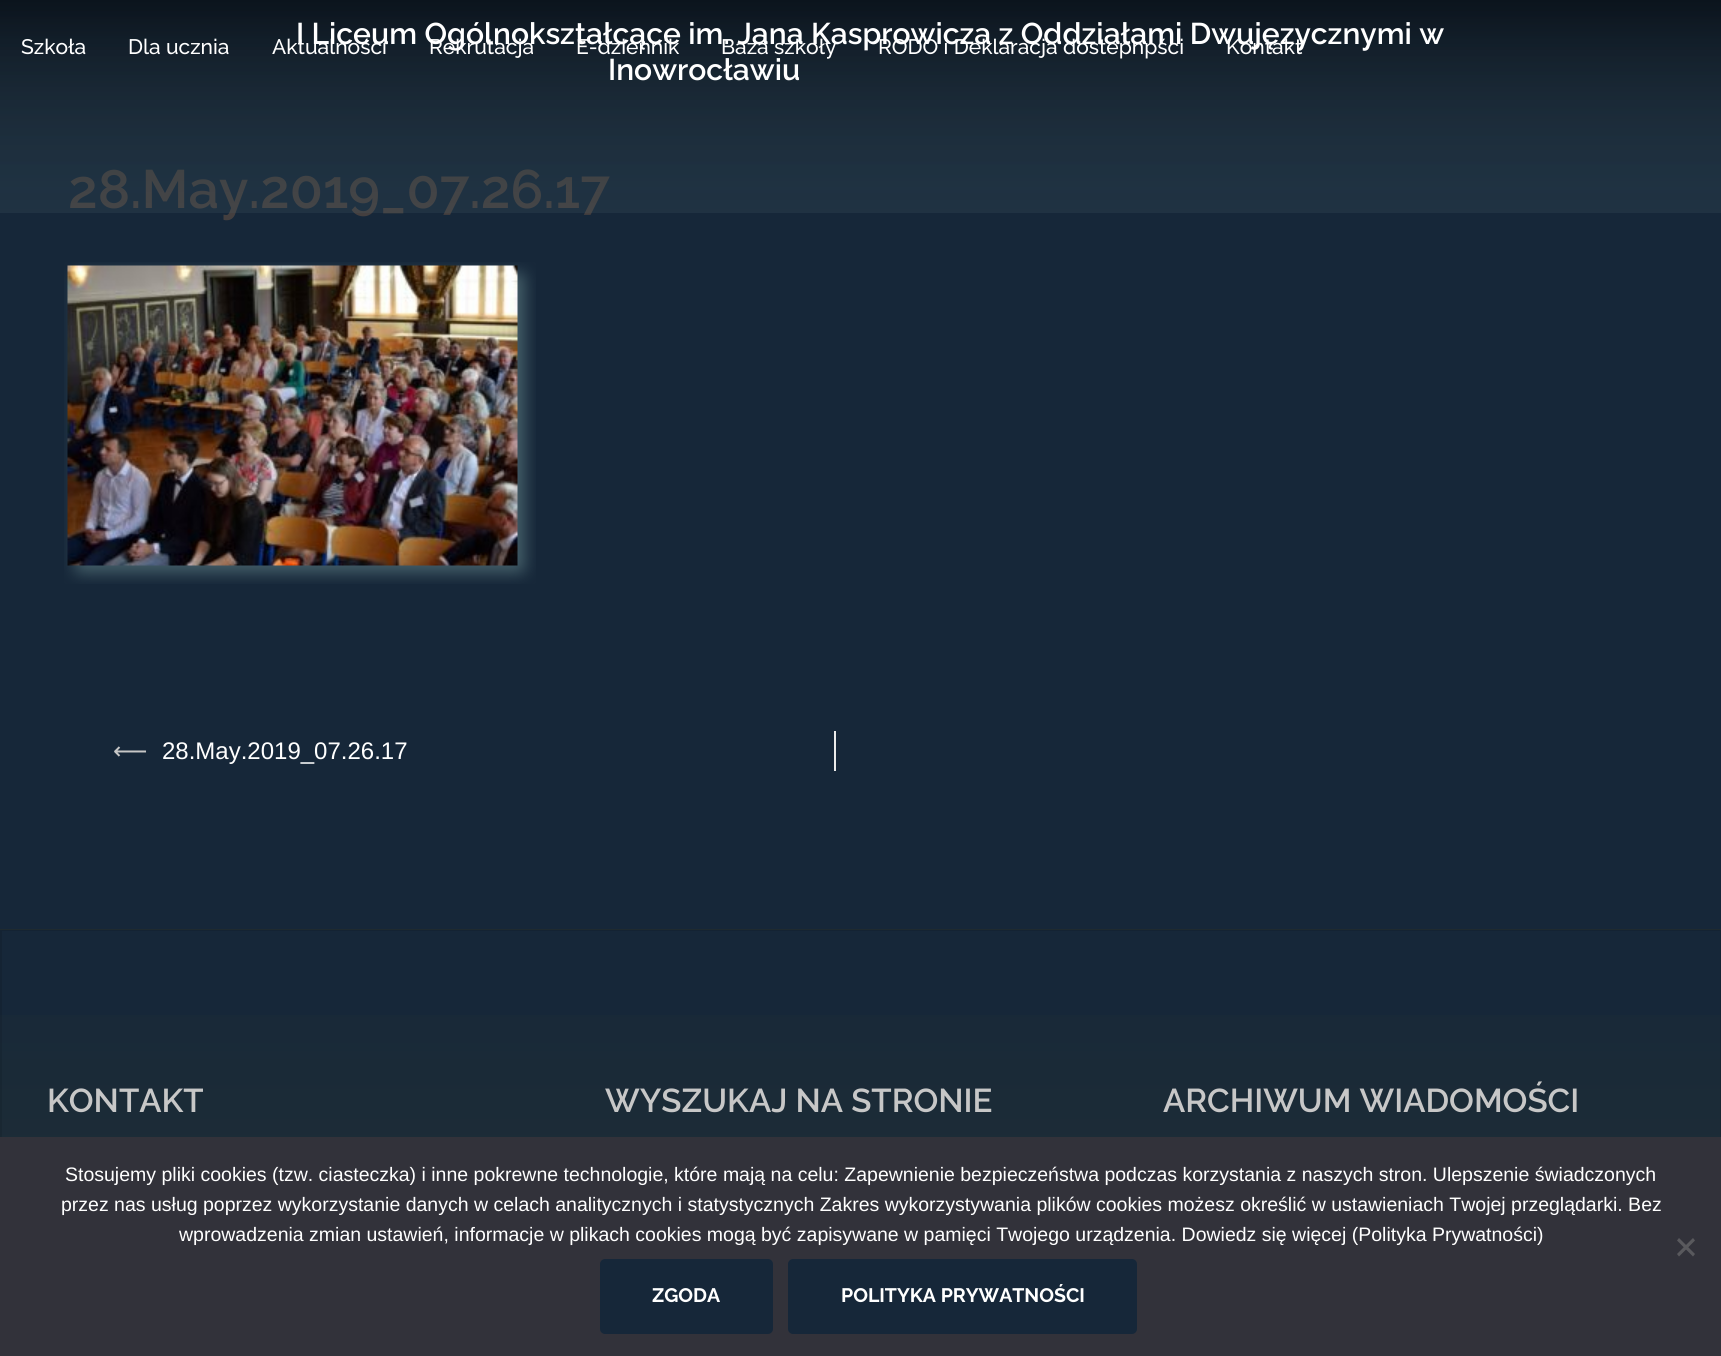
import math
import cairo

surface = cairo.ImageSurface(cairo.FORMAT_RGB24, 1721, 1356)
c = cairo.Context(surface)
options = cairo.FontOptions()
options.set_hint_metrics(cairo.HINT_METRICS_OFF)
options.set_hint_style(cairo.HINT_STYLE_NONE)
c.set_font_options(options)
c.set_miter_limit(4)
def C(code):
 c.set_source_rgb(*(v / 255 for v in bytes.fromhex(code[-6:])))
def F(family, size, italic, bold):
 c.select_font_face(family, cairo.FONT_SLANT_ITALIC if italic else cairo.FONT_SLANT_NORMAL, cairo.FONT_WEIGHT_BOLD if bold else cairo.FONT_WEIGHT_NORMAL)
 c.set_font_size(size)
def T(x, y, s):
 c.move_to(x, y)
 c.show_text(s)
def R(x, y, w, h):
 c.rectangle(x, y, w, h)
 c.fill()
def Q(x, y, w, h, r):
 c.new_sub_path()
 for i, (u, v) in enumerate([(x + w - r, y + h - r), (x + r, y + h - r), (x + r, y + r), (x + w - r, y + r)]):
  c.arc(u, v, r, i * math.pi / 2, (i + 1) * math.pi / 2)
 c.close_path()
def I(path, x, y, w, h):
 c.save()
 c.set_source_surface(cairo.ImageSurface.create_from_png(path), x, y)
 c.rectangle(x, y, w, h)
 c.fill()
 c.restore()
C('162739')
c.paint()
F('Raleway SemiBold',54,0,0)
C('443f3f')
T(68,208,'28.May.2019_07.26.17')
gradient = cairo.LinearGradient(861,0,861,213)
gradient.add_color_stop_rgba(0,0,0,0,.5)
gradient.add_color_stop_rgba(1,0.267,0.369,0.408,.2)
c.set_source(gradient)
R(0,0,1721,213)
F('Raleway Medium',21,0,0)
C('ffffff')
T(272,54,'Aktualności')
T(429,54,'Rekrutacja')
T(576,54,'E-dziennik')
T(721,54,'Baza szkoły')
T(878,54,'RODO i Deklaracja dostepnpści')
T(1226,54,'Kontakt')
F('Raleway SemiBold',30,0,0)
T(296,44,'I Liceum Ogólnokształcące im. Jana Kasprowicza z Oddziałami Dwujęzycznymi w')
T(608,80,'Inowrocławiu')
F('Raleway Medium',21,0,0)
T(21,54,'Szkoła')
T(128,54,'Dla ucznia')
I('1.png',64,262,472,322)
C('ebebeb')
R(834,731,2,40)
F('DejaVu Sans',24,0,0)
C('c7c7c7')
T(113,759,'⟵')
F('Liberation Sans',24,0,0)
C('ffffff')
T(162,759,'28.May.2019_07.26.17')
gradient = cairo.LinearGradient(861,115,861,930)
gradient.add_color_stop_rgba(0,0.086,0.153,0.224,1)
gradient.add_color_stop_rgba(.5,0.133,0.184,0.204,1)
gradient.add_color_stop_rgba(1,0.133,0.184,0.204,1)
c.set_source(gradient)
R(0,929,1721,1)
gradient = cairo.LinearGradient(861,930,861,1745)
gradient.add_color_stop_rgba(0,0.086,0.153,0.224,1)
gradient.add_color_stop_rgba(.5,0.133,0.188,0.204,1)
gradient.add_color_stop_rgba(1,0.133,0.188,0.204,1)
c.set_source(gradient)
R(0,1015,1721,122)
c.rectangle(1,930,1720,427)
c.set_source_rgba(0,0,0,0.1)
c.stroke()
F('Raleway SemiBold',33,0,0)
C('c7c7c7')
T(47,1112,'KONTAKT')
T(605,1112,'WYSZUKAJ NA STRONIE')
T(1163,1112,'ARCHIWUM WIADOMOŚCI')
C('32323a')
R(0,1137,1721,219)
F('Liberation Sans',19.5,0,0)
C('ffffff')
T(65,1181,'Stosujemy pliki cookies (tzw. ciasteczka) i inne pokrewne technologie, które mają na celu: Zapewnienie bezpieczeństwa podczas korzystania z naszych stron. Ulepszenie świadczonych')
T(61,1211,'przez nas usług poprzez wykorzystanie danych w celach analitycznych i statystycznych Zakres wykorzystywania plików cookies możesz określić w ustawieniach Twojej przeglądarki. Bez')
T(179,1241,'wprowadzenia zmian ustawień, informacje w plikach cookies mogą być zapisywane w pamięci Twojego urządzenia. Dowiedz się więcej (Polityka Prywatności)')
C('59595d')
c.new_path()
c.move_to(1693,1238)
c.line_to(1695,1240.5)
c.line_to(1679,1256.5)
c.line_to(1677,1254)
c.close_path()
c.fill()
c.new_path()
c.move_to(1677,1240.5)
c.line_to(1679,1238)
c.line_to(1695,1254)
c.line_to(1693,1256.5)
c.close_path()
c.fill()
C('162739')
Q(601,1260,171,73,4)
c.fill_preserve()
c.stroke()
F('Raleway',19.5,0,1)
C('ffffff')
T(652,1302,'ZGODA')
C('162739')
Q(789,1260,347,73,4)
c.fill_preserve()
c.stroke()
C('ffffff')
T(841,1302,'POLITYKA PRYWATNOŚCI')
surface.write_to_png('o.png')
